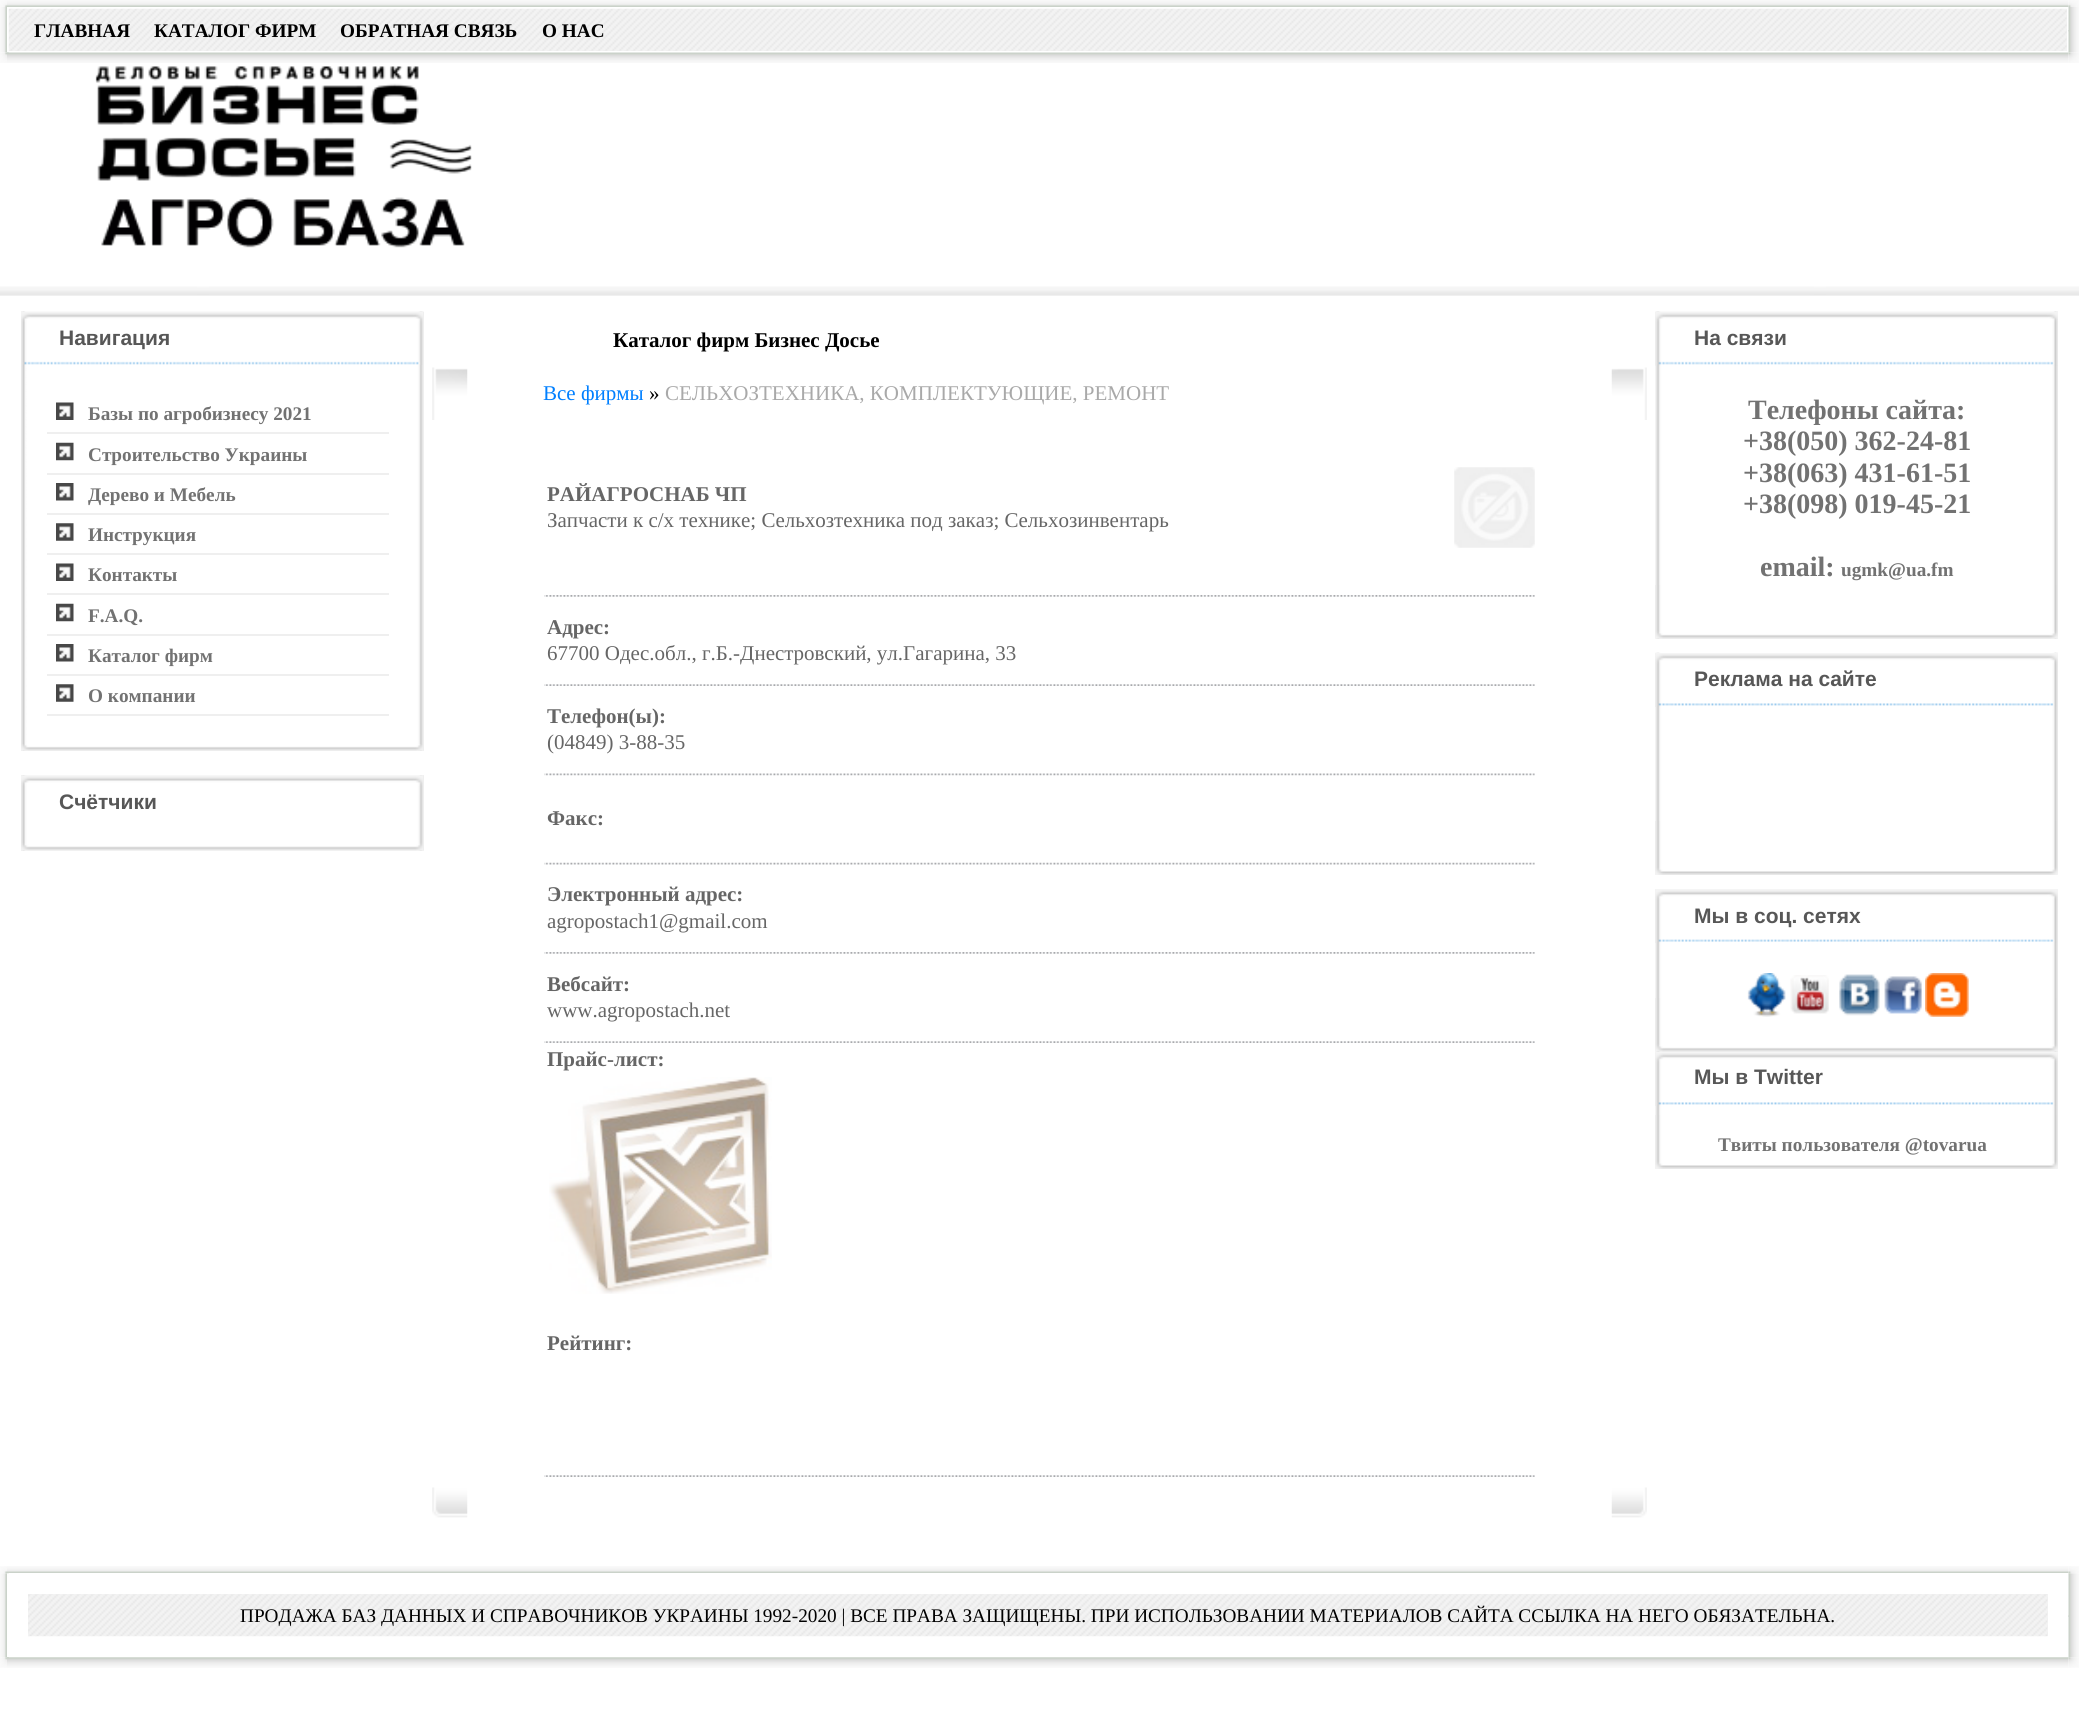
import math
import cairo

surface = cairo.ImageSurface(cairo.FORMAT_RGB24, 2079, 1731)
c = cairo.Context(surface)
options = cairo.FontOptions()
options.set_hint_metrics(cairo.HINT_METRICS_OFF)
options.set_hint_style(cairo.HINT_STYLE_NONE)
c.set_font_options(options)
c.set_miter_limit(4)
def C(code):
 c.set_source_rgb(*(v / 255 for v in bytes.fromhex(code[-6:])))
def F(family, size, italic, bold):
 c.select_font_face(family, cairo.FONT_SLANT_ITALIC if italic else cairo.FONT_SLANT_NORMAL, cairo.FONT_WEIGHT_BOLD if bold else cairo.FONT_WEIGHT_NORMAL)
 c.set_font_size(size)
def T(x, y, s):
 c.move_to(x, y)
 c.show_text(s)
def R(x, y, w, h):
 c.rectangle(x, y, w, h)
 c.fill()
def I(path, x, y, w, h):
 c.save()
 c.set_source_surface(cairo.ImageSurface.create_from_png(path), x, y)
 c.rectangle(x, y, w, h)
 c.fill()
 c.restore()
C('ffffff')
c.paint()
I('1.png',0,0,7,7)
I('2.png',7,0,2062,7)
I('3.png',2068,0,11,7)
I('4.png',0,7,7,46)
C('f3f3f3')
R(9,9,2058,42)
I('5.png',8,8,2059,43)
F('Liberation Serif',19.25,0,1)
C('000000')
T(34,37,'ГЛАВНАЯ')
T(154,37,'КАТАЛОГ ФИРМ')
T(340,37,'ОБРАТНАЯ СВЯЗЬ')
T(542,37,'О НАС')
I('6.png',2068,7,11,46)
I('7.png',2068,30,1,2)
I('8.png',0,52,7,11)
I('9.png',7,52,2062,11)
I('10.png',7,52,2,1)
I('11.png',2068,52,11,11)
I('12.png',95,66,377,182)
I('13.png',0,286,2079,10)
C('f6f6f6')
R(21,312,403,439)
I('14.png',21,311,403,440)
I('15.png',21,311,402,54)
I('16.png',21,744,402,7)
F('Liberation Sans',21,0,1)
C('575757')
T(59,345,'Навигация')
I('17.png',56,402,18,18)
C('efefef')
R(47,432,342,2)
F('Liberation Serif',19.25,0,1)
C('727272')
T(88,420,'Базы по агробизнесу 2021')
I('18.png',56,442,18,19)
C('efefef')
R(47,473,342,2)
C('727272')
T(88,461,'Строительство Украины')
I('19.png',56,483,18,18)
C('efefef')
R(47,513,342,2)
C('727272')
T(88,501,'Дерево и Мебель')
I('20.png',56,523,18,18)
C('efefef')
R(47,553,342,2)
C('727272')
T(88,541,'Инструкция')
I('17.png',56,563,18,18)
C('efefef')
R(47,593,342,2)
C('727272')
T(88,581,'Контакты')
I('18.png',56,603,18,19)
C('efefef')
R(47,634,342,2)
C('727272')
T(88,622,'F.A.Q.')
I('19.png',56,644,18,18)
C('efefef')
R(47,674,342,2)
C('727272')
T(88,662,'Каталог фирм')
I('20.png',56,684,18,18)
C('efefef')
R(47,714,342,2)
C('727272')
T(88,702,'О компании')
C('f6f6f6')
R(21,775,403,76)
I('21.png',21,775,403,76)
I('22.png',21,775,402,50)
I('23.png',21,825,402,26)
F('Liberation Sans',21,0,1)
C('575757')
T(59,809,'Счётчики')
F('Liberation Serif',21,0,1)
C('000000')
T(613,347,'Каталог фирм Бизнес Досье')
I('24.png',432,367,36,53)
F('Liberation Serif',21,0,0)
C('007fff')
T(543,400,'Все фирмы')
C('000000')
T(649,400,'»')
C('a9a9a9')
T(665,400,'СЕЛЬХОЗТЕХНИКА, КОМПЛЕКТУЮЩИЕ, РЕМОНТ')
I('25.png',1611,367,36,53)
F('Liberation Serif',21,0,1)
C('666666')
T(547,501,'РАЙАГРОСНАБ ЧП')
F('Liberation Serif',21,0,0)
T(547,527,'Запчасти к с/х технике; Сельхозтехника под заказ; Сельхозинвентарь')
I('26.png',1454,467,81,81)
I('27.png',544,595,991,2)
F('Liberation Serif',21,0,1)
T(547,634,'Адрес:')
F('Liberation Serif',21,0,0)
T(547,660,'67700 Одес.обл., г.Б.-Днестровский, ул.Гагарина, 33')
I('28.png',544,684,991,2)
F('Liberation Serif',21,0,1)
T(547,723,'Телефон(ы):')
F('Liberation Serif',21,0,0)
T(547,749,'(04849) 3-88-35')
I('29.png',544,773,991,3)
F('Liberation Serif',21,0,1)
T(547,825,'Факс:')
I('30.png',544,862,991,3)
T(547,901,'Электронный адрес:')
F('Liberation Serif',21,0,0)
T(547,928,'agropostach1@gmail.com')
I('31.png',544,952,991,2)
F('Liberation Serif',21,0,1)
T(547,991,'Вебсайт:')
F('Liberation Serif',21,0,0)
T(547,1017,'www.agropostach.net')
I('32.png',544,1041,991,2)
F('Liberation Serif',21,0,1)
T(547,1066,'Прайс-лист:')
I('33.png',549,1077,223,217)
T(547,1350,'Рейтинг:')
I('32.png',544,1475,991,2)
I('34.png',432,1487,36,31)
I('35.png',1611,1487,36,31)
I('36.png',1655,311,403,328)
I('37.png',1655,311,403,55)
I('38.png',1655,585,403,54)
F('Liberation Sans',21,0,1)
C('575757')
T(1694,345,'На связи')
F('Liberation Serif',28,0,1)
C('727272')
T(1748,419,'Телефоны сайта:')
T(1743,450,'+38(050) 362-24-81')
T(1743,482,'+38(063) 431-61-51')
T(1743,513,'+38(098) 019-45-21')
T(1760,576,'email:')
F('Liberation Serif',19.25,0,1)
T(1841,576,'ugmk@ua.fm')
I('39.png',1655,652,403,223)
I('40.png',1655,653,403,54)
I('41.png',1655,821,403,54)
F('Liberation Sans',21,0,1)
C('575757')
T(1694,686,'Реклама на сайте')
I('42.png',1655,889,403,280)
I('43.png',1655,889,403,54)
I('44.png',1655,998,403,54)
T(1694,923,'Мы в соц. сетях')
I('45.png',1747,973,39,44)
I('46.png',1790,975,39,39)
I('47.png',1839,974,41,42)
I('48.png',1884,976,38,38)
I('49.png',1925,973,44,44)
I('40.png',1655,1052,403,54)
I('41.png',1655,1115,403,54)
T(1694,1084,'Мы в Twitter')
F('Liberation Serif',19.25,0,1)
C('727272')
T(1718,1151,'Твиты пользователя @tovarua')
I('50.png',0,1566,7,7)
I('51.png',7,1566,2062,7)
I('52.png',7,1573,2,1)
I('56.png',2068,1573,11,85)
I('53.png',2068,1566,11,8)
I('54.png',0,1573,7,85)
C('f3f3f3')
R(28,1594,2020,42)
I('55.png',28,1594,2020,43)
F('Liberation Serif',19.25,0,0)
C('000000')
T(240,1622,'ПРОДАЖА БАЗ ДАННЫХ И СПРАВОЧНИКОВ УКРАИНЫ 1992-2020 | ВСЕ ПРАВА ЗАЩИЩЕНЫ. ПРИ ИСПОЛЬЗОВАНИИ МАТЕРИАЛОВ САЙТА ССЫЛКА НА НЕГО ОБЯЗАТЕЛЬНА.')
I('57.png',2068,1615,1,2)
I('58.png',0,1657,7,11)
I('59.png',7,1657,2062,11)
I('60.png',7,1657,2,1)
I('61.png',2068,1657,11,11)
surface.write_to_png('o.png')
